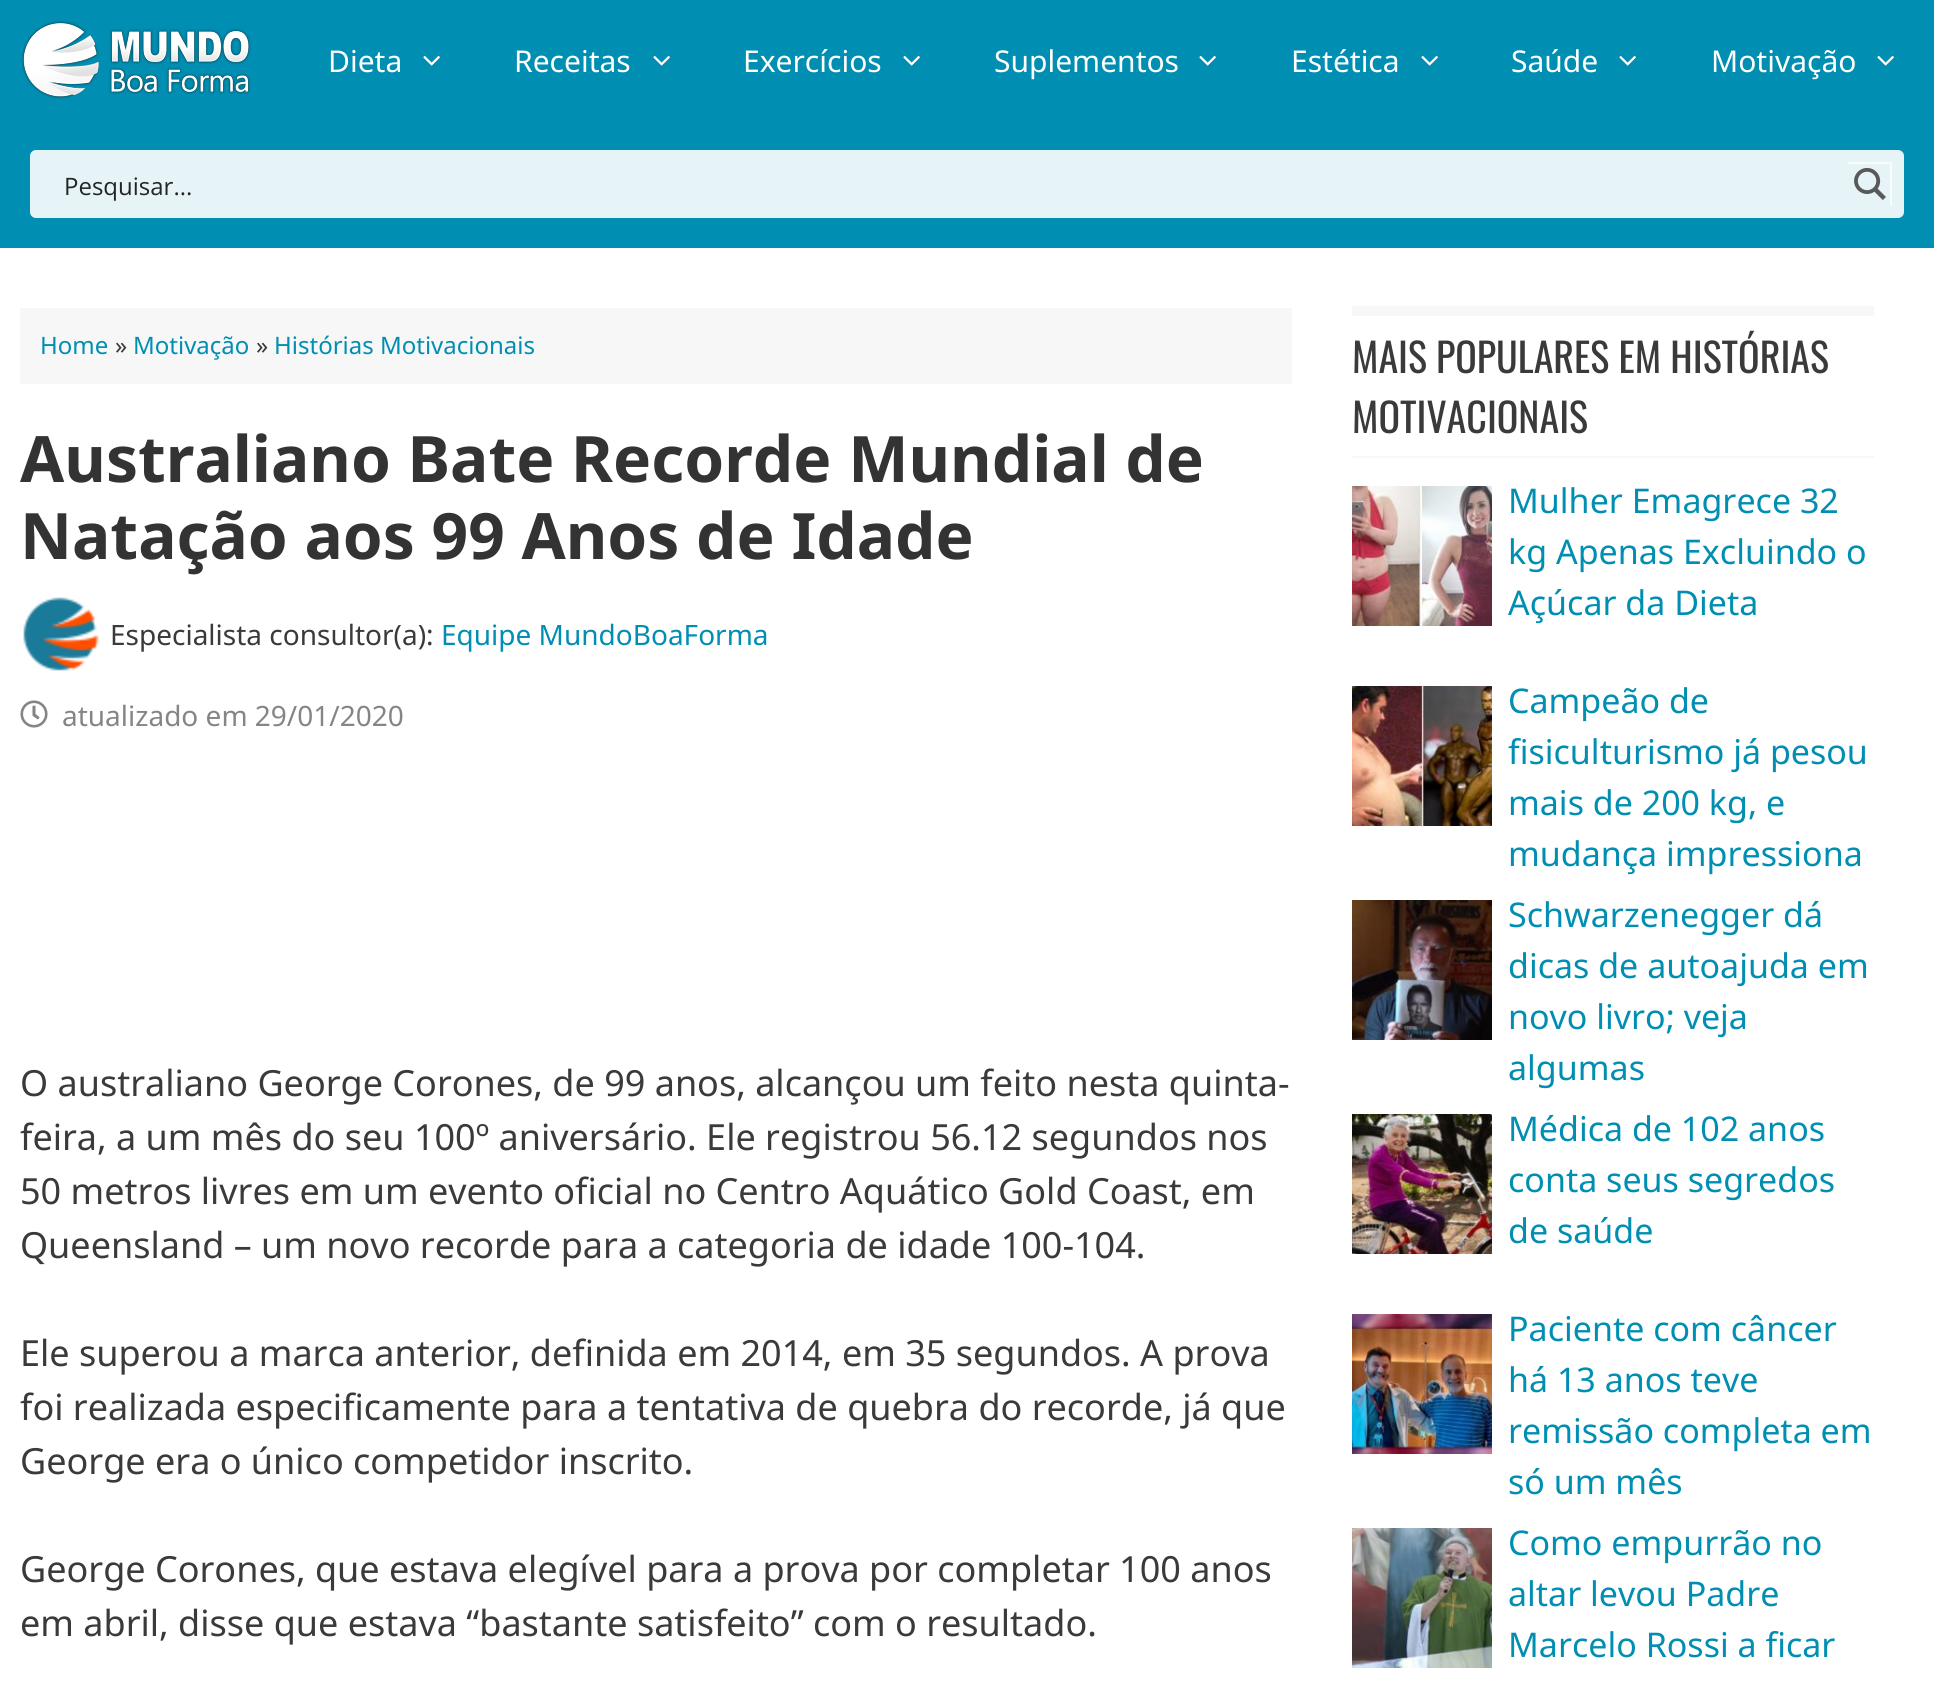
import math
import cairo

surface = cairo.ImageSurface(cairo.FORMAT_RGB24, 1934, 1696)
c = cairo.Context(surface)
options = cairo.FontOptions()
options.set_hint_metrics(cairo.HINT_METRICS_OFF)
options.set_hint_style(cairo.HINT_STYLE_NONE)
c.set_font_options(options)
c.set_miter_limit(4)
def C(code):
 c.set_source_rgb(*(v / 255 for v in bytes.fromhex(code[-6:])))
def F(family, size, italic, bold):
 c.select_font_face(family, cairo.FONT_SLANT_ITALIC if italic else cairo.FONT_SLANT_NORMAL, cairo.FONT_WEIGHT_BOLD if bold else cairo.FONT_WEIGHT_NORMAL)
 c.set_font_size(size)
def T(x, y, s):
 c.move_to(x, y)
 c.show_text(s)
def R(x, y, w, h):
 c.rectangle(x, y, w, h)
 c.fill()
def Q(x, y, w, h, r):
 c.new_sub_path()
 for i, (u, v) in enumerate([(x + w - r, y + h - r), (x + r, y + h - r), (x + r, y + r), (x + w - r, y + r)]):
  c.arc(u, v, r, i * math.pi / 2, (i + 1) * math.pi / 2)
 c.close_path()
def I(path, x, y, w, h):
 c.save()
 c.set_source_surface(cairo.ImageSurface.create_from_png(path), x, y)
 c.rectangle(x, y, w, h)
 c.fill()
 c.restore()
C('ffffff')
c.paint()
C('008eb2')
R(0,0,1934,248)
I('1.png',21,20,230,79)
F('Noto Sans',30,0,0)
C('ffffff')
T(328,72,'Dieta')
I('2.png',423,55,17,11)
T(514,72,'Receitas')
I('2.png',653,55,17,11)
T(743,72,'Exercícios')
I('2.png',903,55,17,11)
T(994,72,'Suplementos')
I('2.png',1199,55,17,11)
T(1291,72,'Estética')
I('2.png',1421,55,17,11)
T(1511,72,'Saúde')
I('2.png',1619,55,17,11)
T(1711,72,'Motivação')
I('2.png',1877,55,17,11)
C('e6f4f7')
Q(30,150,1874,68,6)
c.fill()
F('Open Sans',24,0,0)
C('232525')
T(64,195,'Pesquisar...')
c.save()
c.rectangle(1848,162,44,44)
c.clip()
C('f6fbfc')
c.set_fill_rule(cairo.FILL_RULE_EVEN_ODD)
c.new_path()
c.move_to(1650,218)
c.line_to(1650,150)
c.line_to(1898,150)
c.curve_to(1901,150,1904,153,1904,156)
c.line_to(1904,212)
c.curve_to(1904,215,1901,218,1898,218)
c.close_path()
c.move_to(1846,164)
c.line_to(1846,208)
c.line_to(1890,208)
c.line_to(1890,164)
c.close_path()
c.fill()
c.restore()
I('3.png',1854,167,32,33)
C('f7f7f7')
R(20,308,1272,76)
F('Noto Sans',24,0,0)
C('008eb2')
T(40,354,'Home')
C('3a3a3a')
T(115,354,'»')
C('008eb2')
T(133,354,'Motivação')
C('3a3a3a')
T(256,354,'»')
C('008eb2')
T(274,354,'Histórias Motivacionais')
F('Noto Sans',64,0,1)
C('333333')
T(20,482,'Australiano Bate Recorde Mundial de')
T(20,559,'Natação aos 99 Anos de Idade')
I('4.png',23,597,76,74)
F('Noto Sans',28,0,0)
C('3a3a3a')
T(110,645,'Especialista consultor(a):')
C('008eb2')
T(441,645,'Equipe MundoBoaForma')
I('5.png',20,700,28,28)
C('858585')
T(62,726,'atualizado em 29/01/2020')
F('Noto Sans',36,0,0)
C('3a3a3a')
T(20,1096,'O australiano George Corones, de 99 anos, alcançou um feito nesta quinta-')
T(20,1150,'feira, a um mês do seu 100º aniversário. Ele registrou 56.12 segundos nos')
T(20,1204,'50 metros livres em um evento oficial no Centro Aquático Gold Coast, em')
T(20,1258,'Queensland – um novo recorde para a categoria de idade 100-104.')
T(20,1366,'Ele superou a marca anterior, definida em 2014, em 35 segundos. A prova')
T(20,1420,'foi realizada especificamente para a tentativa de quebra do recorde, já que')
T(20,1474,'George era o único competidor inscrito.')
T(20,1582,'George Corones, que estava elegível para a prova por completar 100 anos')
T(20,1636,'em abril, disse que estava “bastante satisfeito” com o resultado.')
C('f7f7f7')
R(1352,306,522,10)
R(1352,456,522,2)
F('Oswald',40,0,0)
C('3a3a3a')
T(1352,373,'MAIS POPULARES EM HISTÓRIAS')
T(1352,433,'MOTIVACIONAIS')
I('6.png',1352,486,140,140)
F('Noto Sans',34,0,0)
C('008eb2')
T(1508,513,'Mulher Emagrece 32')
T(1508,564,'kg Apenas Excluindo o')
T(1508,615,'Açúcar da Dieta')
I('7.png',1352,686,140,140)
T(1508,713,'Campeão de')
T(1508,764,'fisiculturismo já pesou')
T(1508,815,'mais de 200 kg, e')
T(1508,866,'mudança impressiona')
I('8.png',1352,900,140,140)
T(1508,927,'Schwarzenegger dá')
T(1508,978,'dicas de autoajuda em')
T(1508,1029,'novo livro; veja')
T(1508,1080,'algumas')
I('9.png',1352,1114,140,140)
T(1508,1141,'Médica de 102 anos')
T(1508,1192,'conta seus segredos')
T(1508,1243,'de saúde')
I('10.png',1352,1314,140,140)
T(1508,1341,'Paciente com câncer')
T(1508,1392,'há 13 anos teve')
T(1508,1443,'remissão completa em')
T(1508,1494,'só um mês')
I('11.png',1352,1528,140,140)
T(1508,1555,'Como empurrão no')
T(1508,1606,'altar levou Padre')
T(1508,1657,'Marcelo Rossi a ficar')
surface.write_to_png('o.png')
